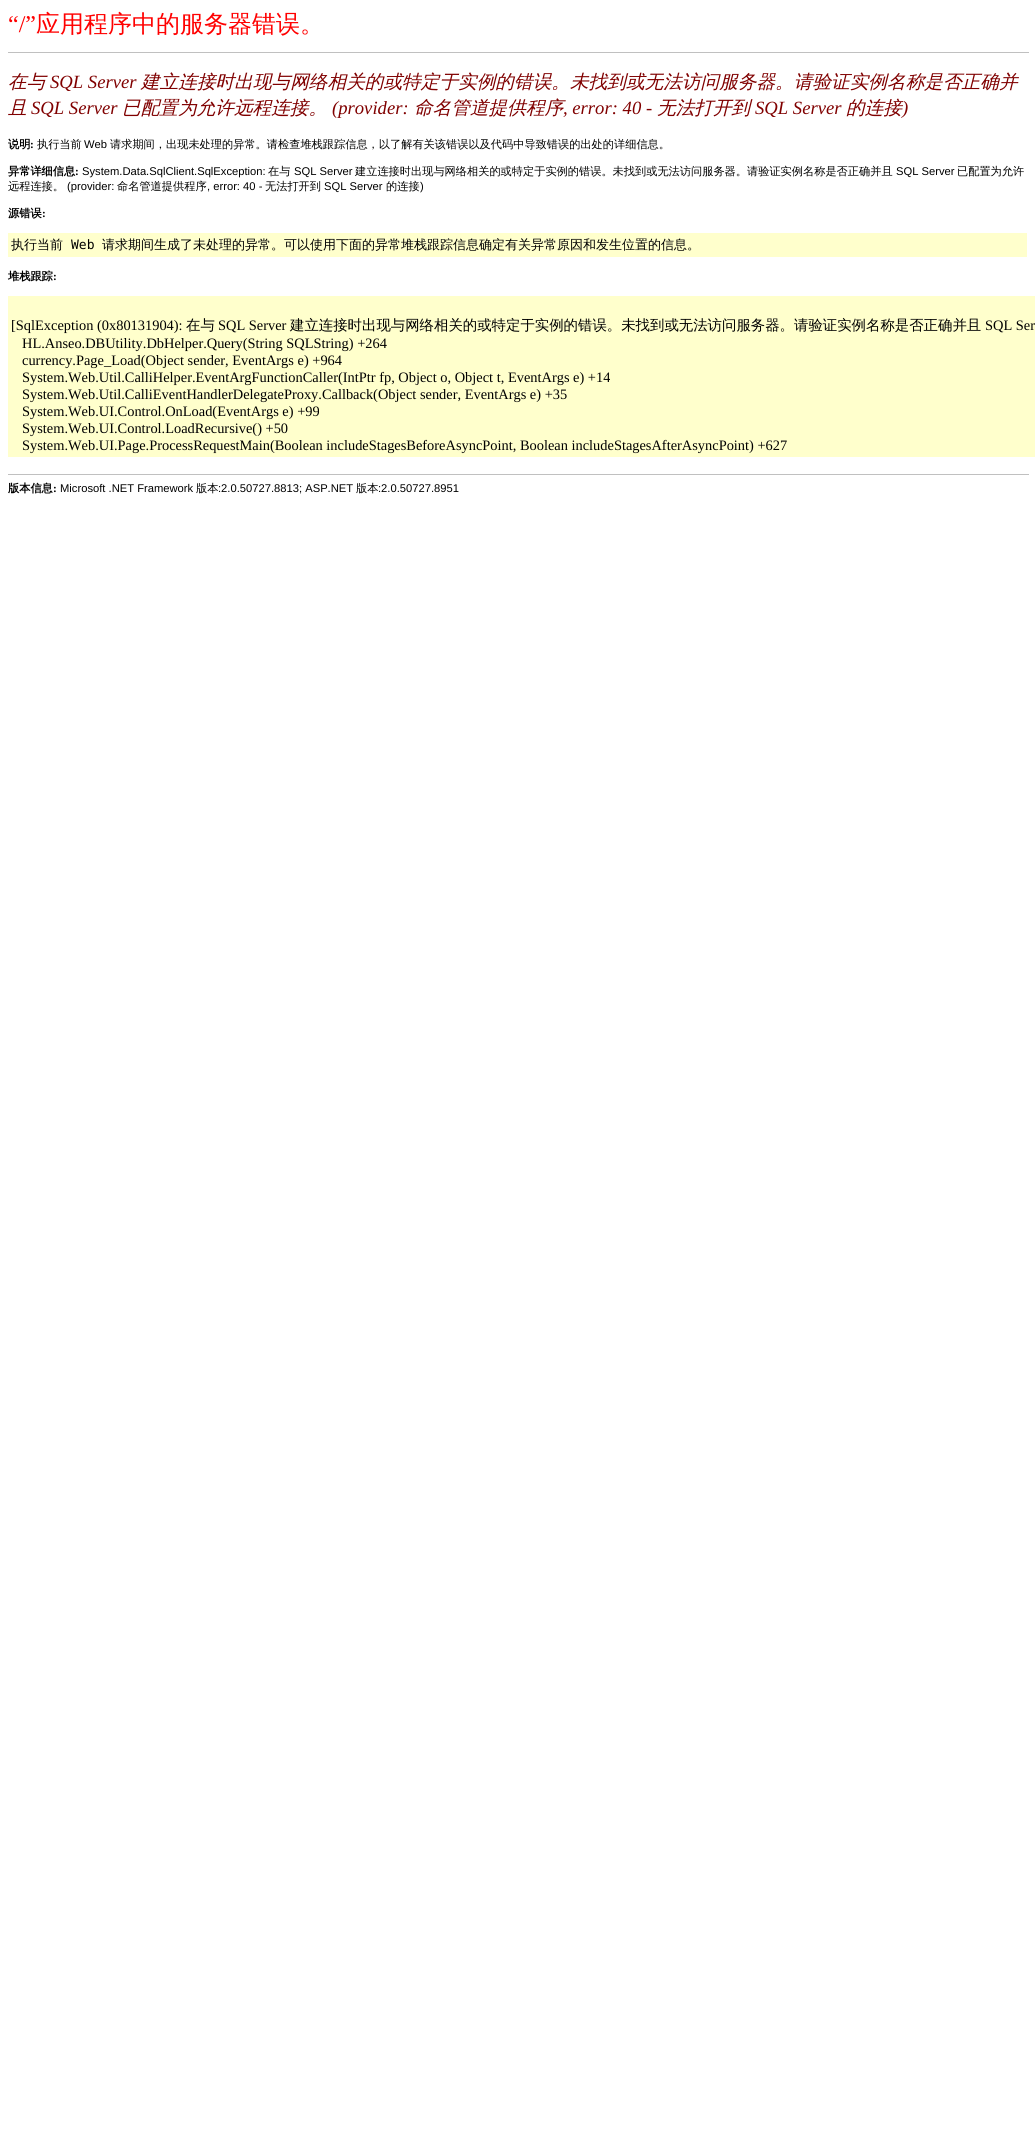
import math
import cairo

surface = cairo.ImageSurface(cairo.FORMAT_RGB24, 1035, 2136)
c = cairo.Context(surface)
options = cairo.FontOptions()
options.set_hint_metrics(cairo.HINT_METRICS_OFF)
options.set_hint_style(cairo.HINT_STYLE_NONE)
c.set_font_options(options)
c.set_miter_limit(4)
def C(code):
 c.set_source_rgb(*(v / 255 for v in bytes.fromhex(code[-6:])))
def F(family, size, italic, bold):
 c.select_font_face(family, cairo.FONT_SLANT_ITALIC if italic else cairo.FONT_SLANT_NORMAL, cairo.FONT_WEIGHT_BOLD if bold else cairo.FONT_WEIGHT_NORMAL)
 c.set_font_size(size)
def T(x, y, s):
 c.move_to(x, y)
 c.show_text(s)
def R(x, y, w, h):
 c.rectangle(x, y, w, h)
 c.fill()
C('ffffff')
c.paint()
F('Liberation Serif',24,0,0)
C('ff0000')
T(8,32,'“/”')
F('WenQuanYi Zen Hei Medium',24,0,0)
T(36,32,'应用程序中的服务器错误。')
C('c0c0c0')
R(8,52,1021,1)
F('WenQuanYi Zen Hei Medium',18.65,1,0)
C('800000')
T(8,88,'在与')
F('Liberation Serif',18.65,1,0)
T(50,88,'SQL Server')
F('WenQuanYi Zen Hei Medium',18.65,1,0)
T(141,88,'建立连接时出现与网络相关的或特定于实例的错误。未找到或无法访问服务器。请验证实例名称是否正确并')
T(8,114,'且')
F('Liberation Serif',18.65,1,0)
T(31,114,'SQL Server')
F('WenQuanYi Zen Hei Medium',18.65,1,0)
T(122,114,'已配置为允许远程连接。')
F('Liberation Serif',18.65,1,0)
T(332,114,'(provider:')
F('WenQuanYi Zen Hei Medium',18.65,1,0)
T(414,114,'命名管道提供程序')
F('Liberation Serif',18.65,1,0)
T(563,114,', error: 40 -')
F('WenQuanYi Zen Hei Medium',18.65,1,0)
T(657,114,'无法打开到')
F('Liberation Serif',18.65,1,0)
T(755,114,'SQL Server')
F('WenQuanYi Zen Hei Medium',18.65,1,0)
T(846,114,'的连接')
F('Liberation Serif',18.65,1,0)
T(902,114,')')
F('WenQuanYi Zen Hei',11.2,0,1)
C('000000')
T(8,148,'说明')
F('Liberation Serif',11.2,0,1)
T(30,148,':')
F('WenQuanYi Zen Hei Medium',11.2,0,0)
T(37,148,'执行当前')
F('Liberation Sans',11.2,0,0)
T(84,148,'Web')
F('WenQuanYi Zen Hei Medium',11.2,0,0)
T(110,148,'请求期间，出现未处理的异常。请检查堆栈跟踪信息，以了解有关该错误以及代码中导致错误的出处的详细信息。')
F('WenQuanYi Zen Hei',11.2,0,1)
T(8,175,'异常详细信息')
F('Liberation Serif',11.2,0,1)
T(75,175,':')
F('Liberation Sans',11.2,0,0)
T(82,175,'System.Data.SqlClient.SqlException:')
F('WenQuanYi Zen Hei Medium',11.2,0,0)
T(268,175,'在与')
F('Liberation Sans',11.2,0,0)
T(294,175,'SQL Server')
F('WenQuanYi Zen Hei Medium',11.2,0,0)
T(355,175,'建立连接时出现与网络相关的或特定于实例的错误。未找到或无法访问服务器。请验证实例名称是否正确并且')
F('Liberation Sans',11.2,0,0)
T(896,175,'SQL Server')
F('WenQuanYi Zen Hei Medium',11.2,0,0)
T(957,175,'已配置为允许')
T(8,190,'远程连接。')
F('Liberation Sans',11.2,0,0)
T(67,190,'(provider:')
F('WenQuanYi Zen Hei Medium',11.2,0,0)
T(117,190,'命名管道提供程序')
F('Liberation Sans',11.2,0,0)
T(207,190,', error: 40 -')
F('WenQuanYi Zen Hei Medium',11.2,0,0)
T(265,190,'无法打开到')
F('Liberation Sans',11.2,0,0)
T(324,190,'SQL Server')
F('WenQuanYi Zen Hei Medium',11.2,0,0)
T(386,190,'的连接')
F('Liberation Sans',11.2,0,0)
T(420,190,')')
F('WenQuanYi Zen Hei',11.2,0,1)
T(8,217,'源错误')
F('Liberation Serif',11.2,0,1)
T(42,217,':')
C('ffffcc')
R(8,233,1019,24)
F('WenQuanYi Zen Hei Medium',13,0,0)
C('000000')
T(11,249,'执行当前')
F('DejaVu Sans Mono',13,0,0)
T(71,249,'Web')
F('WenQuanYi Zen Hei Medium',13,0,0)
T(102,249,'请求期间生成了未处理的异常。可以使用下面的异常堆栈跟踪信息确定有关异常原因和发生位置的信息。')
F('WenQuanYi Zen Hei',11.2,0,1)
T(8,280,'堆栈跟踪')
F('Liberation Serif',11.2,0,1)
T(53,280,':')
C('ffffcc')
R(8,296,1027,161)
F('Liberation Serif',14.4,0,0)
C('000000')
T(11,330,'[SqlException (0x80131904):')
F('WenQuanYi Zen Hei Medium',14.4,0,0)
T(186,330,'在与')
F('Liberation Serif',14.4,0,0)
T(218,330,'SQL Server')
F('WenQuanYi Zen Hei Medium',14.4,0,0)
T(290,330,'建立连接时出现与网络相关的或特定于实例的错误。未找到或无法访问服务器。请验证实例名称是否正确并且')
F('Liberation Serif',14.4,0,0)
T(985,330,'SQL Ser')
T(22,348,'HL.Anseo.DBUtility.DbHelper.Query(String SQLString) +264')
T(22,365,'currency.Page_Load(Object sender, EventArgs e) +964')
T(22,382,'System.Web.Util.CalliHelper.EventArgFunctionCaller(IntPtr fp, Object o, Object t, EventArgs e) +14')
T(22,399,'System.Web.Util.CalliEventHandlerDelegateProxy.Callback(Object sender, EventArgs e) +35')
T(22,416,'System.Web.UI.Control.OnLoad(EventArgs e) +99')
T(22,433,'System.Web.UI.Control.LoadRecursive() +50')
T(22,450,'System.Web.UI.Page.ProcessRequestMain(Boolean includeStagesBeforeAsyncPoint, Boolean includeStagesAfterAsyncPoint) +627')
C('c0c0c0')
R(8,474,1021,1)
F('WenQuanYi Zen Hei',11.2,0,1)
C('000000')
T(8,492,'版本信息')
F('Liberation Serif',11.2,0,1)
T(53,492,':')
F('Liberation Sans',11.2,0,0)
T(60,492,'Microsoft .NET Framework')
F('WenQuanYi Zen Hei Medium',11.2,0,0)
T(196,492,'版本')
F('Liberation Sans',11.2,0,0)
T(218,492,':2.0.50727.8813; ASP.NET')
F('WenQuanYi Zen Hei Medium',11.2,0,0)
T(356,492,'版本')
F('Liberation Sans',11.2,0,0)
T(378,492,':2.0.50727.8951')
surface.write_to_png('o.png')
